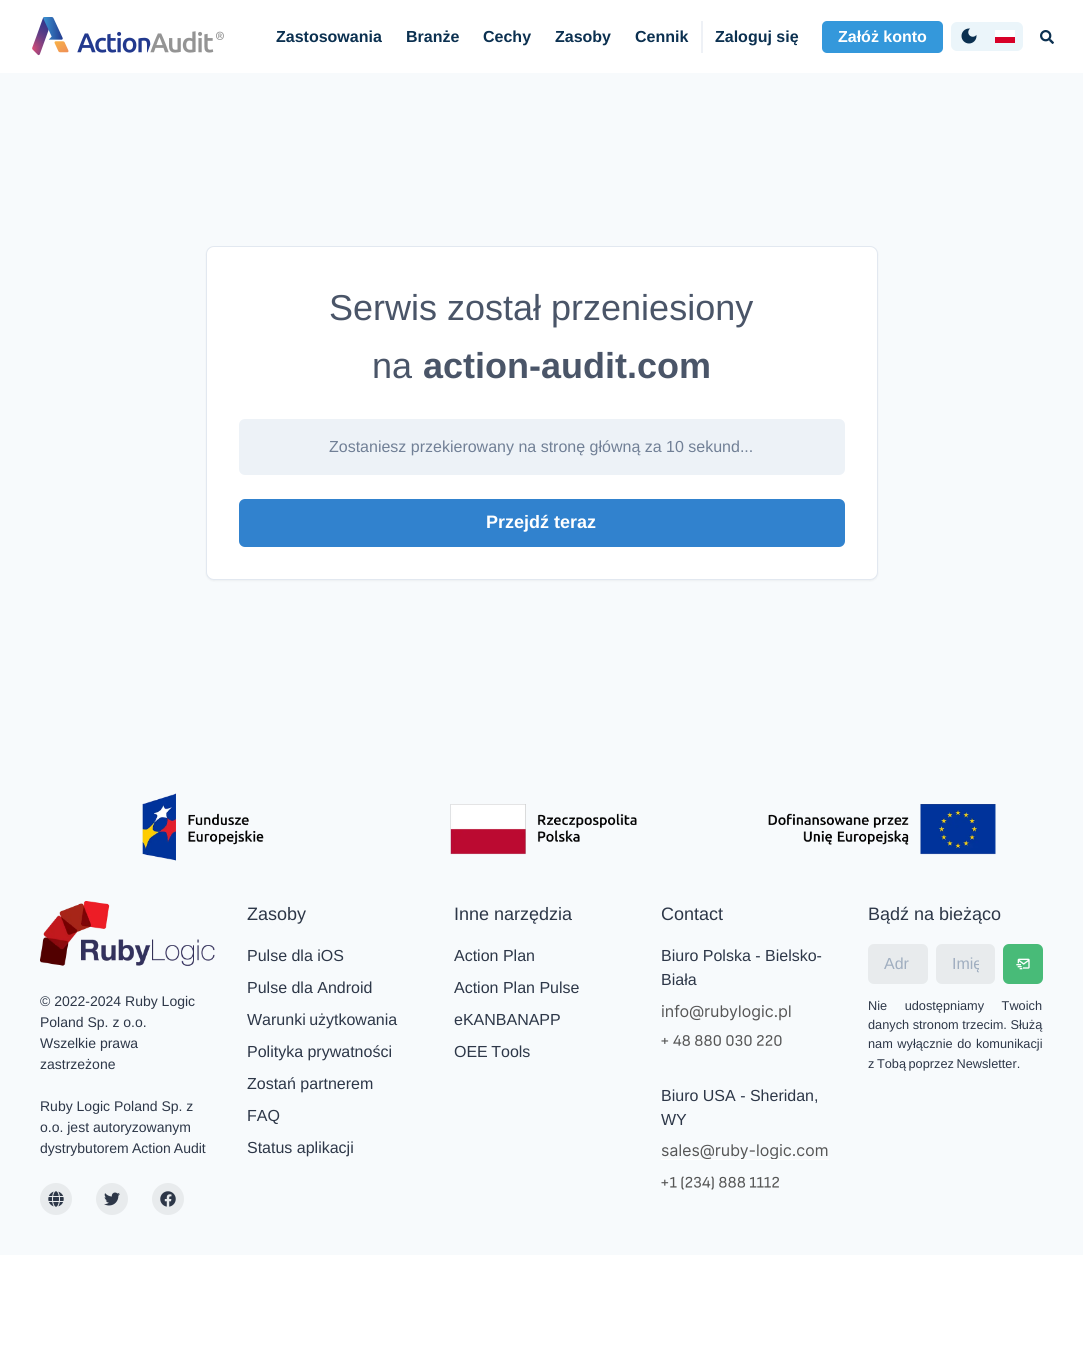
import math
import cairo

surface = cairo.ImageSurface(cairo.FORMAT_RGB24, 1083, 1360)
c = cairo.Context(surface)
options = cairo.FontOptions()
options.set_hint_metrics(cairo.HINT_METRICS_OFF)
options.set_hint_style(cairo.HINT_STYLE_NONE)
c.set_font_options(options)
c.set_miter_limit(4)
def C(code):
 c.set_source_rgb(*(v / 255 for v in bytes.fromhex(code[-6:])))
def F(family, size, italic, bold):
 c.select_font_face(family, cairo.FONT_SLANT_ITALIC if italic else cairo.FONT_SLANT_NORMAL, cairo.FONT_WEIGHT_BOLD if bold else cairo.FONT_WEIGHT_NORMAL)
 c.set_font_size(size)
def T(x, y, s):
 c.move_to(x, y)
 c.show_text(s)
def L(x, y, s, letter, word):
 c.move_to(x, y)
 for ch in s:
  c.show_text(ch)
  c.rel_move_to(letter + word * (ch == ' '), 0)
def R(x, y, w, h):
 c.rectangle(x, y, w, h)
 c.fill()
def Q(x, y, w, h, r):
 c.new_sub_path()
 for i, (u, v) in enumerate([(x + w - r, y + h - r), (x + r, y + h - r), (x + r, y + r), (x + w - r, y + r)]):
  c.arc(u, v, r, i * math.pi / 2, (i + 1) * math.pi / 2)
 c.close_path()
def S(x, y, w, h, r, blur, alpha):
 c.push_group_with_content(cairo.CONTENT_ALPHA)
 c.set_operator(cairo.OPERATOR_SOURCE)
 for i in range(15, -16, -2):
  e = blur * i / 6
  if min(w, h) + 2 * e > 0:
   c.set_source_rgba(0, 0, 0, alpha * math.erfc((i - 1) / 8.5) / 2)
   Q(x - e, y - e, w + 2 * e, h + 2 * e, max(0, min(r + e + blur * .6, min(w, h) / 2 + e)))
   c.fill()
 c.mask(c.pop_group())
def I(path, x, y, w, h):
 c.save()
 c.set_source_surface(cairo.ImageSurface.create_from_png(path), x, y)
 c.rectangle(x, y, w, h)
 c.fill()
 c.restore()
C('ffffff')
c.paint()
I('1.png',32,17,192,39)
F('Liberation Sans',16,0,1)
C('0b3050')
T(276,42,'Zastosowania')
T(406,42,'Branże')
T(483,42,'Cechy')
T(555,42,'Zasoby')
T(635,42,'Cennik')
C('eef1f6')
R(701,21,2,32)
C('0b3050')
T(715,42,'Zaloguj się')
C('3498db')
Q(822,21,121,32,5)
c.fill()
C('ffffff')
T(838,42,'Załóż konto')
C('ebf5fa')
Q(951,22,72,29,6)
c.fill()
I('2.png',961,28,16,16)
C('ffffff')
R(995,30,20,7)
C('d80027')
R(995,37,20,6)
I('3.png',1040,30,14,14)
C('f7fafc')
R(0,73,1083,1182)
C('000000')
S(206,247,672,334,8,1,.05)
C('ffffff')
Q(206.5,246.5,671,333,7.5)
c.fill_preserve()
C('e2e8f0')
c.set_line_width(1)
c.stroke()
F('Liberation Sans',36,0,0)
C('4a5568')
T(329,320,'Serwis został przeniesiony')
T(372,378,'na')
F('Liberation Sans',36,0,1)
T(423,378,'action-audit.com')
C('edf2f7')
Q(239,419,606,56,6)
c.fill()
F('Liberation Sans',16,0,0)
C('718096')
T(329,452,'Zostaniesz przekierowany na stronę główną za 10 sekund...')
C('3182ce')
Q(239,499,606,48,6)
c.fill()
F('Liberation Sans',18,0,1)
C('ffffff')
T(486,528,'Przejdź teraz')
I('4.png',142,793,122,68)
I('5.png',450,804,187,51)
I('6.png',768,804,228,51)
I('7.png',40,901,175,66)
F('Liberation Sans',14,0,0)
C('2d3748')
T(40,1006,'© 2022-2024 Ruby Logic')
T(40,1027,'Poland Sp. z o.o.')
T(40,1048,'Wszelkie prawa')
T(40,1069,'zastrzeżone')
T(40,1111,'Ruby Logic Poland Sp. z')
T(40,1132,'o.o. jest autoryzowanym')
T(40,1153,'dystrybutorem')
L(132,1153,'Action Audit',0,-1)
C('e8ebed')
c.new_path()
c.arc(56,1199,16,0,2 * math.pi)
c.fill()
I('8.png',48,1191,16,16)
c.arc(112,1199,16,0,2 * math.pi)
c.fill()
I('9.png',104,1192,16,14)
c.arc(168,1199,16,0,2 * math.pi)
c.fill()
I('10.png',160,1191,16,16)
F('Liberation Sans',18,0,0)
C('2d3748')
T(247,920,'Zasoby')
F('Liberation Sans',16,0,0)
T(247,961,'Pulse dla iOS')
T(247,993,'Pulse dla Android')
L(247,1025,'Warunki użytkowania',0,-1)
T(247,1057,'Polityka prywatności')
T(247,1089,'Zostań partnerem')
T(247,1121,'FAQ')
T(247,1153,'Status aplikacji')
F('Liberation Sans',18,0,0)
T(454,920,'Inne narzędzia')
F('Liberation Sans',16,0,0)
T(454,961,'Action Plan')
T(454,993,'Action Plan Pulse')
T(454,1025,'eKANBANAPP')
L(454,1057,'OEE Tools',0,-1)
F('Liberation Sans',18,0,0)
T(661,920,'Contact')
F('Liberation Sans',16,0,0)
T(661,961,'Biuro Polska - Bielsko-')
T(661,985,'Biała')
I('11.png',662,1004,129,17)
I('12.png',661,1035,121,11)
T(661,1101,'Biuro USA - Sheridan,')
T(661,1125,'WY')
I('13.png',661,1144,168,16)
I('14.png',661,1176,118,14)
F('Liberation Sans',18,0,0)
T(868,920,'Bądź na bieżąco')
C('e8ebed')
Q(868,944,60,40,6)
c.fill()
F('Liberation Sans',16,0,0)
C('a0aec0')
T(884,969,'Adr')
C('e8ebed')
Q(936,944,59,40,6)
c.fill()
c.save()
c.rectangle(952,955,27,18)
c.clip()
C('a0aec0')
T(952,969,'Imię')
c.restore()
C('48bb78')
Q(1003,944,40,40,6)
c.fill()
I('15.png',1016,958,14,12)
F('Liberation Sans',12.75,0,0)
C('2d3748')
L(868,1010,'Nie udostępniamy Twoich',0,14)
T(868,1029,'danych stronom trzecim. Służą')
L(868,1048,'nam wyłącznie do komunikacji',0,1)
L(868,1068,'z Tobą poprzez Newsletter.',0,-1)
surface.write_to_png('o.png')
